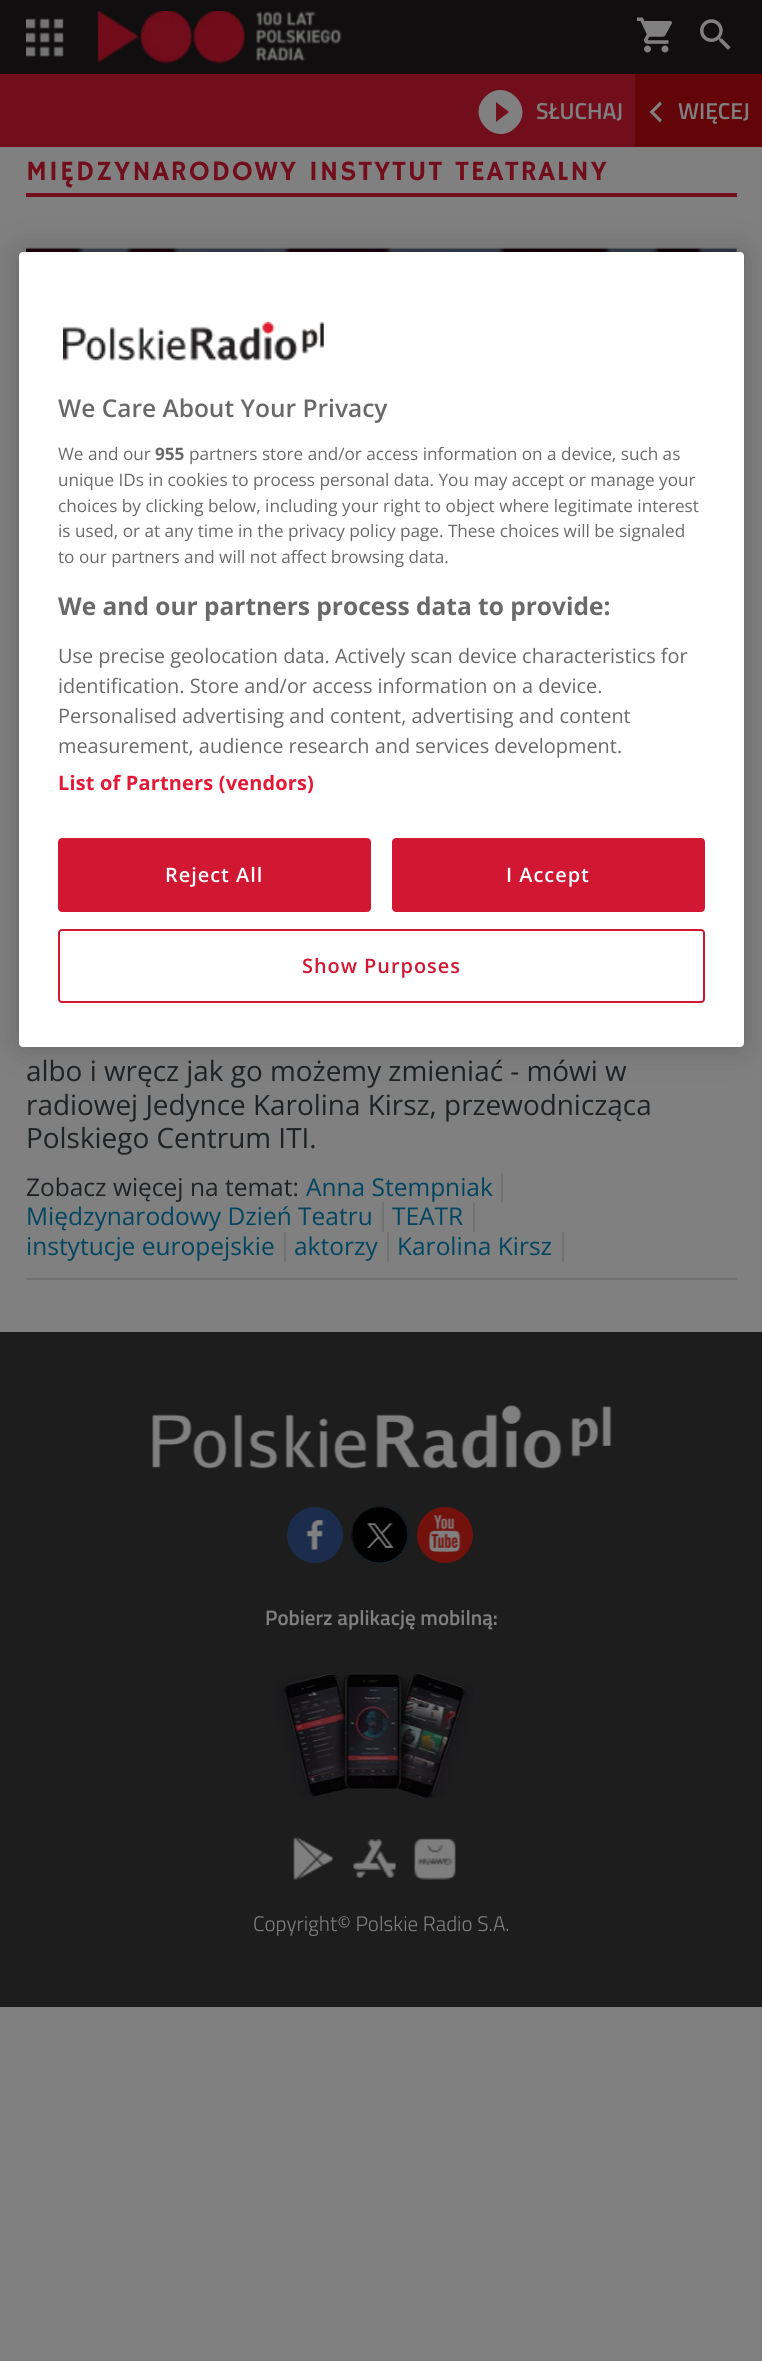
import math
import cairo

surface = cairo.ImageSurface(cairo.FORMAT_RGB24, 762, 2361)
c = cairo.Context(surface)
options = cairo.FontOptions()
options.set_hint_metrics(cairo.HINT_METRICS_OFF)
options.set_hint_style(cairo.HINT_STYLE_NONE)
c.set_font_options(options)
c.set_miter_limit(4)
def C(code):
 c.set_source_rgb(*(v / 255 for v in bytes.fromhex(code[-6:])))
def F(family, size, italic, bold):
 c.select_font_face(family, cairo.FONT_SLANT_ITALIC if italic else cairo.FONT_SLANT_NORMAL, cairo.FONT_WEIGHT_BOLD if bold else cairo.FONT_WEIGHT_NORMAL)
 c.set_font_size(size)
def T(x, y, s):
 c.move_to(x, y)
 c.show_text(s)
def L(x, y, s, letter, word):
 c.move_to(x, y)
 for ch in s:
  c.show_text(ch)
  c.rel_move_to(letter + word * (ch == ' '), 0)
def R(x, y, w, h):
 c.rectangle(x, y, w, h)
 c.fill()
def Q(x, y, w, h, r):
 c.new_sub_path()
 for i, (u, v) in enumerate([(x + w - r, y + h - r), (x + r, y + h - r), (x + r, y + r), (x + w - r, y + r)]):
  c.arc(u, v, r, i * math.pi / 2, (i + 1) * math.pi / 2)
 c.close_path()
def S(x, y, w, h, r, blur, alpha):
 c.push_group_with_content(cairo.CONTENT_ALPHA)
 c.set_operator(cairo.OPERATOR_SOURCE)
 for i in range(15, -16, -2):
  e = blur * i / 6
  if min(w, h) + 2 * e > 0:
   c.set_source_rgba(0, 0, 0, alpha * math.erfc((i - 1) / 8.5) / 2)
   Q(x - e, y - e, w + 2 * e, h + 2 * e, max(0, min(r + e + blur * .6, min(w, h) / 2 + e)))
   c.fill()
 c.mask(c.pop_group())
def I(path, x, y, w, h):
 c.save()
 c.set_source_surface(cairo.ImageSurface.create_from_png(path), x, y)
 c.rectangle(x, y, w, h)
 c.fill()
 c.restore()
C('808080')
c.paint()
C('100e0e')
R(0,0,762,74)
I('1.png',26,18,38,39)
I('2.png',97,11,245,53)
I('3.png',636,17,36,36)
I('4.png',700,19,31,31)
C('720d1b')
R(0,74,635,73)
C('808080')
c.new_path()
c.move_to(496,122)
c.line_to(509,112)
c.line_to(496,102)
c.close_path()
c.move_to(485,97)
c.curve_to(505,76,536,107,516,127)
c.curve_to(496,148,465,117,485,97)
c.close_path()
c.fill()
F('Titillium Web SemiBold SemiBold',23,0,0)
T(536,119,'SŁUCHAJ')
C('620408')
R(635,74,127,73)
C('808080')
c.new_path()
c.move_to(662,120)
c.line_to(660,122.5)
c.line_to(649.5,112)
c.line_to(660,101.5)
c.line_to(662,104)
c.line_to(654,112)
c.close_path()
c.fill()
T(678,119,'WIĘCEJ')
C('720d1b')
R(26,193,711,4)
F('Hammersmith One',28,0,0)
L(26,180,'MIĘDZYNARODOWY INSTYTUT TEATRALNY',1.75,0)
C('737373')
R(26,1278,711,2)
R(736,249,1,3)
I('5.png',26,247,711,5)
F('Open Sans',27.9,0,0)
C('1e2224')
T(26,1081,'albo i wręcz jak go możemy zmieniać - mówi w')
T(26,1115,'radiowej Jedynce Karolina Kirsz, przewodnicząca')
T(26,1148,'Polskiego Centrum ITI.')
F('Open Sans',24.5,0,0)
T(26,1196,'Zobacz więcej na temat:')
C('737373')
R(501,1173,2,29)
C('014560')
T(306,1196,'Anna Stempniak')
C('737373')
R(382,1202,2,30)
C('014560')
T(26,1225,'Międzynarodowy Dzień Teatru')
C('737373')
R(473,1202,2,30)
C('014560')
T(392,1225,'TEATR')
C('737373')
R(284,1232,2,30)
C('014560')
T(26,1255,'instytucje europejskie')
C('737373')
R(387,1232,2,30)
C('014560')
T(294,1255,'aktorzy')
C('737373')
R(562,1232,2,30)
C('014560')
T(397,1255,'Karolina Kirsz')
C('1d1d1d')
R(0,1332,762,675)
I('6.png',152,1405,460,64)
C('1b2c4d')
c.arc(315,1535,28,0,2 * math.pi)
c.fill()
I('7.png',306,1520,18,30)
C('0f5179')
c.arc(380,1535,28,0,2 * math.pi)
c.fill()
I('8.png',351,1506,58,57)
C('73110c')
c.arc(445,1535,28,0,2 * math.pi)
c.fill()
I('9.png',428,1515,33,38)
F('Titillium Web SemiBold SemiBold',21,0,0)
C('808080')
T(265,1625,'Pobierz aplikację mobilną:')
I('10.png',276,1673,197,126)
I('11.png',293,1837,40,43)
I('12.png',353,1839,43,39)
I('13.png',414,1837,42,43)
F('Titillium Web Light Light',21,0,0)
T(253,1931,'Copyright© Polskie Radio S.A.')
C('000000')
S(19,252,725,795,4,16,.2)
C('ffffff')
Q(19,252,725,795,4)
c.fill()
I('14.png',63,321,261,40)
F('Open Sans SemiBold',24.5,0,0)
C('696969')
T(58,417,'We Care About Your Privacy')
F('Open Sans',17.15,0,0)
T(58,460,'We and our')
F('Open Sans',17.15,0,1)
T(155,460,'955')
F('Open Sans',17.15,0,0)
T(189,460,'partners store and/or access information on a device, such as')
T(58,486,'unique IDs in cookies to process personal data. You may accept or manage your')
T(58,512,'choices by clicking below, including your right to object where legitimate interest')
T(58,537,'is used, or at any time in the privacy policy page. These choices will be signaled')
T(58,563,'to our partners and will not affect browsing data.')
F('Open Sans',24.5,0,1)
T(58,615,'We and our partners process data to provide:')
F('Open Sans',19.9,0,0)
T(58,663,'Use precise geolocation data. Actively scan device characteristics for')
T(58,693,'identification. Store and/or access information on a device.')
T(58,723,'Personalised advertising and content, advertising and content')
T(58,753,'measurement, audience research and services development.')
F('Open Sans',19.9,0,1)
C('e31936')
L(58,790,'List of Partners (vendors)',.2,0)
C('d21733')
Q(59,839,311,72,3)
c.fill_preserve()
c.stroke()
F('Open Sans SemiBold',19.9,0,0)
C('ffffff')
L(165,882,'Reject All',1,0)
C('d21733')
Q(393,839,311,72,3)
c.fill_preserve()
c.stroke()
C('ffffff')
L(506,882,'I Accept',1,0)
Q(59,930,645,72,3)
C('d21733')
c.stroke()
L(302,973,'Show Purposes',1,0)
surface.write_to_png('o.png')
